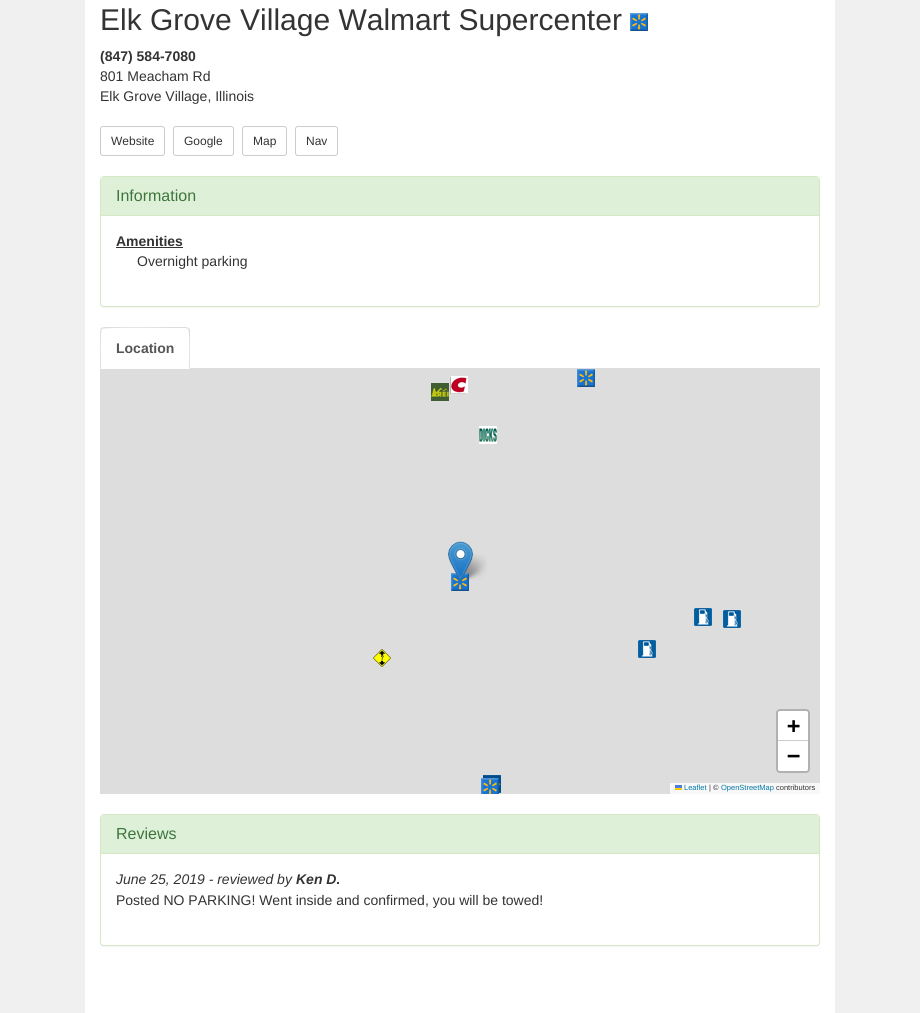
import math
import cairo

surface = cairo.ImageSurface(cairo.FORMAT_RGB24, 920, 1013)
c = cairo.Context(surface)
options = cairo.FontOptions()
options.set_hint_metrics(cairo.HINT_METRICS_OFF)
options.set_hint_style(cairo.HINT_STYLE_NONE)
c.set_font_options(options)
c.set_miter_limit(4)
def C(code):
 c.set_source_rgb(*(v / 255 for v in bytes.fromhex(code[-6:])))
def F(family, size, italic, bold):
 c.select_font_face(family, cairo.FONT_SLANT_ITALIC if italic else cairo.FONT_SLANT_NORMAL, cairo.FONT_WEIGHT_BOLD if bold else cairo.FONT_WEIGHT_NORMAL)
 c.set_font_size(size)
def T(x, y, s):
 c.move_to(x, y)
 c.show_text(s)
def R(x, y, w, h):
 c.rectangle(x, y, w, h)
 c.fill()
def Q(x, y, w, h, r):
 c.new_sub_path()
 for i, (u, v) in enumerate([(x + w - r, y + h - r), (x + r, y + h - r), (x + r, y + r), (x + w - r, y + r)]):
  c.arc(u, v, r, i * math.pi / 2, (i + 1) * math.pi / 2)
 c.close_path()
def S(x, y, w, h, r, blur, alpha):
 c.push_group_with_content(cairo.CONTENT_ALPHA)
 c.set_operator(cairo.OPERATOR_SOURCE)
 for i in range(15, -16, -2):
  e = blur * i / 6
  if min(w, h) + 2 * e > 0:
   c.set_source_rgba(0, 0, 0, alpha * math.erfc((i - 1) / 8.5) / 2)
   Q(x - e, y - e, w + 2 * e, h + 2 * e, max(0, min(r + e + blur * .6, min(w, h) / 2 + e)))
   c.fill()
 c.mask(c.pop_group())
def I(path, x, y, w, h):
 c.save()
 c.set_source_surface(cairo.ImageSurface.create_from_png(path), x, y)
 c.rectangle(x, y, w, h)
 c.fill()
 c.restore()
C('f0f0f0')
c.paint()
C('ffffff')
R(85,0,750,1013)
F('Liberation Sans',30,0,0)
C('333333')
T(100,30,'Elk Grove Village Walmart Supercenter')
I('1.png',630,13,18,18)
F('Liberation Sans',14,0,1)
T(100,61,'(847) 584-7080')
F('Liberation Sans',14,0,0)
T(100,81,'801 Meacham Rd')
T(100,101,'Elk Grove Village, Illinois')
Q(100.5,126.5,64,29,2.5)
C('cccccc')
c.set_line_width(1)
c.stroke()
F('Liberation Sans',12,0,0)
C('333333')
T(111,145,'Website')
Q(173.5,126.5,60,29,2.5)
C('cccccc')
c.stroke()
C('333333')
T(184,145,'Google')
Q(242.5,126.5,44,29,2.5)
C('cccccc')
c.stroke()
C('333333')
T(253,145,'Map')
Q(295.5,126.5,42,29,2.5)
C('cccccc')
c.stroke()
C('333333')
T(306,145,'Nav')
C('000000')
S(100,177,720,131,4,.5,.05)
C('ffffff')
Q(100.5,176.5,719,130,3.5)
c.fill_preserve()
C('d6e9c6')
c.stroke()
C('dff0d8')
c.new_path()
c.move_to(104,177)
c.line_to(816,177)
c.curve_to(817.5,177,819,178.5,819,180)
c.line_to(819,216)
c.line_to(101,216)
c.line_to(101,180)
c.curve_to(101,178.5,102.5,177,104,177)
c.close_path()
c.fill()
C('d6e9c6')
R(101,215,718,1)
F('Liberation Sans',16,0,0)
C('3c763d')
T(116,201,'Information')
F('Liberation Sans',14,0,1)
C('333333')
T(116,246,'Amenities')
R(116,247,67,1)
F('Liberation Sans',14,0,0)
T(137,266,'Overnight parking')
C('dddddd')
R(190,368,630,1)
c.new_path()
c.move_to(104,327)
c.line_to(101,328)
c.line_to(102,329)
c.curve_to(104,327,165,328,172,328)
c.line_to(186,328)
c.line_to(188,329)
c.line_to(189,328)
c.line_to(186,327)
c.close_path()
c.fill()
c.new_path()
c.move_to(190,369)
c.line_to(190,331)
c.curve_to(190,330,190,329,189,328)
c.line_to(188,329)
c.curve_to(190,331,189,363,189,368)
c.close_path()
c.fill()
c.new_path()
c.move_to(100,369)
c.line_to(101,368)
c.curve_to(101,363,100,331,102,329)
c.line_to(101,328)
c.line_to(100,331)
c.close_path()
c.fill()
F('Liberation Sans',14,0,1)
C('555555')
T(116,353,'Location')
C('dddddd')
R(100,369,720,425)
I('2.png',431,383,18,18)
I('3.png',450,376,18,18)
I('4.png',577,369,18,18)
I('5.png',479,426,18,18)
I('12.png',464,554,23,26)
I('7.png',451,573,18,18)
I('6.png',448,541,25,41)
I('8.png',694,608,18,18)
I('8.png',723,610,18,18)
I('9.png',373,649,18,18)
I('8.png',638,640,18,18)
I('10.png',483,775,18,18)
I('11.png',481,778,18,16)
Q(777,710,32,62,3)
C('b1b1b1')
c.set_line_width(2)
c.stroke()
C('ffffff')
c.new_path()
c.move_to(780,711)
c.line_to(806,711)
c.curve_to(807,711,808,712,808,713)
c.line_to(808,741)
c.line_to(778,741)
c.line_to(778,713)
c.curve_to(778,712,779,711,780,711)
c.close_path()
c.fill()
C('cccccc')
R(778,740,30,1)
F('DejaVu Sans Mono',22,0,1)
C('000000')
T(787,733,'+')
C('ffffff')
c.new_path()
c.move_to(778,741)
c.line_to(808,741)
c.line_to(808,769)
c.curve_to(808,770,807,771,806,771)
c.line_to(780,771)
c.curve_to(779,771,778,770,778,769)
c.close_path()
c.fill()
C('000000')
T(787,763,'−')
C('f8f8f8')
R(670,783,150,11)
I('13.png',675,785,7,5)
F('Liberation Sans',7.5,0,0)
C('0078a8')
T(684,790,'Leaflet')
C('333333')
T(709,790,'| ©')
C('0078a8')
T(721,790,'OpenStreetMap')
C('333333')
T(776,790,'contributors')
C('000000')
S(100,815,720,132,4,.5,.05)
C('ffffff')
Q(100.5,814.5,719,131,3.5)
c.fill_preserve()
C('d6e9c6')
c.set_line_width(1)
c.stroke()
C('dff0d8')
c.new_path()
c.move_to(104,815)
c.line_to(816,815)
c.curve_to(817.5,815,819,816.5,819,818)
c.line_to(819,854)
c.line_to(101,854)
c.line_to(101,818)
c.curve_to(101,816.5,102.5,815,104,815)
c.close_path()
c.fill()
C('d6e9c6')
R(101,853,718,1)
F('Liberation Sans',16,0,0)
C('3c763d')
T(116,839,'Reviews')
F('Liberation Sans',14,1,0)
C('333333')
T(116,884,'June 25, 2019 - reviewed by')
F('Liberation Sans',14,1,1)
T(296,884,'Ken D.')
F('Liberation Sans',14,0,0)
T(116,905,'Posted NO PARKING! Went inside and confirmed, you will be towed!')
surface.write_to_png('o.png')
